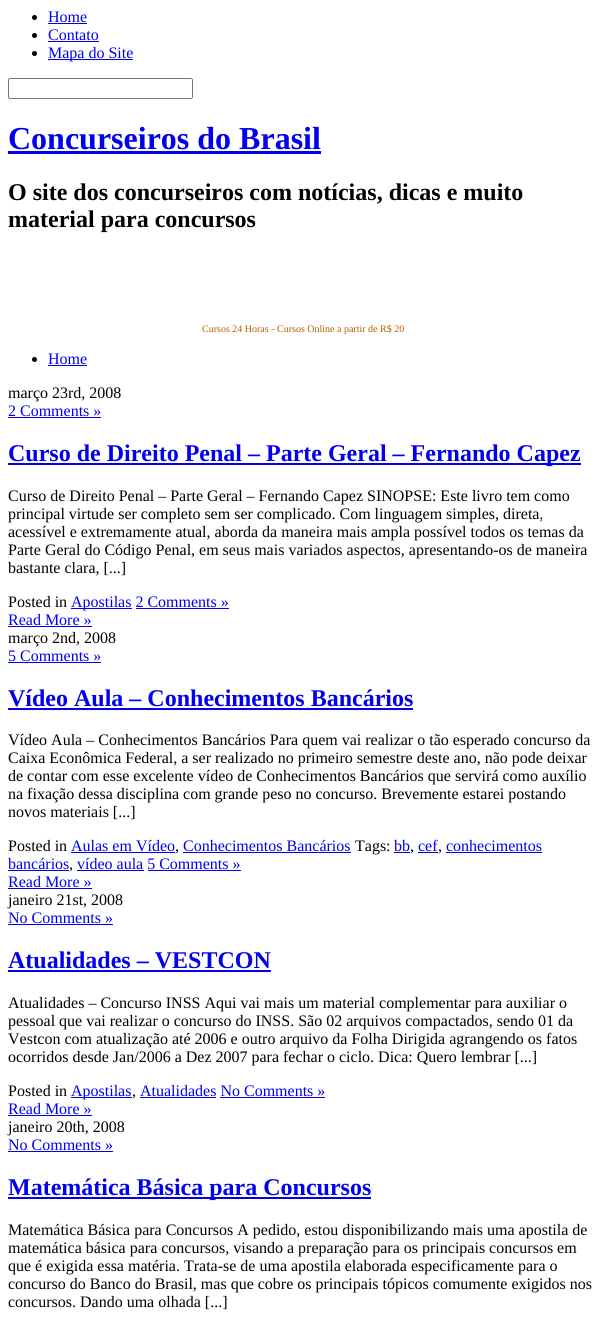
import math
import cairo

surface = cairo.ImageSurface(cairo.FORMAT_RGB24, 606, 1334)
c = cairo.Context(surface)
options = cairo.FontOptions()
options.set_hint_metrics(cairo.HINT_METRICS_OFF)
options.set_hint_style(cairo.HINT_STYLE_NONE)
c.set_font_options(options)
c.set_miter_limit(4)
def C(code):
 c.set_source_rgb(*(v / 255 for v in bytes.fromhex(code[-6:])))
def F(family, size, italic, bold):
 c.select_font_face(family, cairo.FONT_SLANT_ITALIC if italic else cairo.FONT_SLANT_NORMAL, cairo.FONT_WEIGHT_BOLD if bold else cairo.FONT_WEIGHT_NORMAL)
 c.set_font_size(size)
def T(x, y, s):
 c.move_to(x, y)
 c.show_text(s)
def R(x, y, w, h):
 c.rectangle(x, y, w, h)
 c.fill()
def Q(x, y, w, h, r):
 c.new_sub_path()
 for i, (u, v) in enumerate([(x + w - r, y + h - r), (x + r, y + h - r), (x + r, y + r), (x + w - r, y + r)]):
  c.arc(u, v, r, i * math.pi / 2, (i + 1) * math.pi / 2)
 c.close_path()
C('ffffff')
c.paint()
C('000000')
c.arc(34.5,17.5,2.5,0,2 * math.pi)
c.fill()
F('Liberation Serif',16,0,0)
C('0000ee')
T(48,22,'Home')
R(48,23,39,1)
C('000000')
c.new_path()
c.arc(34.5,35.5,2.5,0,2 * math.pi)
c.fill()
C('0000ee')
T(48,40,'Contato')
R(48,41,51,1)
C('000000')
c.new_path()
c.arc(34.5,53.5,2.5,0,2 * math.pi)
c.fill()
C('0000ee')
R(48,59,85,1)
T(48,58,'Mapa do Site')
Q(8.5,78.5,184,20,1.5)
C('767676')
c.set_line_width(1)
c.stroke()
F('Liberation Serif',32,0,1)
C('0000ee')
T(8,149,'Concurseiros do Brasil')
R(8,151,313,3)
F('Liberation Serif',24,0,1)
C('000000')
T(8,200,'O site dos concurseiros com notícias, dicas e muito')
T(8,227,'material para concursos')
F('Liberation Serif',10,0,0)
C('b75b00')
T(202,332,'Cursos 24 Horas - Cursos Online a partir de R$ 20')
C('000000')
c.new_path()
c.arc(34.5,359.5,2.5,0,2 * math.pi)
c.fill()
F('Liberation Serif',16,0,0)
C('0000ee')
T(48,364,'Home')
R(48,365,39,1)
C('000000')
T(8,398,'março 23rd, 2008')
C('0000ee')
T(8,416,'2 Comments »')
R(8,417,93,1)
R(8,463,573,2)
F('Liberation Serif',24,0,1)
T(8,461,'Curso de Direito Penal – Parte Geral – Fernando Capez')
F('Liberation Serif',16,0,0)
C('000000')
T(8,501,'Curso de Direito Penal – Parte Geral – Fernando Capez SINOPSE: Este livro tem como')
T(8,519,'principal virtude ser completo sem ser complicado. Com linguagem simples, direta,')
T(8,537,'acessível e extremamente atual, aborda da maneira mais ampla possível todos os temas da')
T(8,555,'Parte Geral do Código Penal, em seus mais variados aspectos, apresentando-os de maneira')
T(8,573,'bastante clara, [...]')
T(8,607,'Posted in')
C('0000ee')
R(71,608,61,1)
T(71,607,'Apostilas 2 Comments »')
R(136,608,93,1)
T(8,625,'Read More »')
R(8,626,84,1)
C('000000')
T(8,643,'março 2nd, 2008')
C('0000ee')
T(8,661,'5 Comments »')
R(8,662,93,1)
F('Liberation Serif',24,0,1)
T(8,706,'Vídeo Aula – Conhecimentos Bancários')
R(8,708,405,2)
F('Liberation Serif',16,0,0)
C('000000')
T(8,745,'Vídeo Aula – Conhecimentos Bancários Para quem vai realizar o tão esperado concurso da')
T(8,763,'Caixa Econômica Federal, a ser realizado no primeiro semestre deste ano, não pode deixar')
T(8,781,'de contar com esse excelente vídeo de Conhecimentos Bancários que servirá como auxílio')
T(8,799,'na fixação dessa disciplina com grande peso no concurso. Brevemente estarei postando')
T(8,817,'novos materiais [...]')
T(8,851,'Posted in')
C('0000ee')
T(71,851,'Aulas em Vídeo')
R(71,852,104,1)
C('000000')
T(175,851,',')
C('0000ee')
T(183,851,'Conhecimentos Bancários')
R(183,852,168,1)
C('000000')
T(355,851,'Tags:')
C('0000ee')
T(394,851,'bb')
R(394,852,16,1)
C('000000')
T(410,851,',')
C('0000ee')
T(418,851,'cef')
R(418,852,20,1)
C('000000')
T(438,851,',')
C('0000ee')
T(446,851,'conhecimentos')
R(446,852,96,1)
T(8,869,'bancários')
R(8,870,61,1)
C('000000')
T(69,869,',')
C('0000ee')
T(77,869,'vídeo aula 5 Comments »')
R(77,870,67,1)
R(148,870,93,1)
T(8,887,'Read More »')
R(8,888,84,1)
C('000000')
T(8,905,'janeiro 21st, 2008')
C('0000ee')
T(8,923,'No Comments »')
R(8,924,105,1)
F('Liberation Serif',24,0,1)
T(8,968,'Atualidades – VESTCON')
R(8,970,263,2)
F('Liberation Serif',16,0,0)
C('000000')
T(8,1008,'Atualidades – Concurso INSS Aqui vai mais um material complementar para auxiliar o')
T(8,1026,'pessoal que vai realizar o concurso do INSS. São 02 arquivos compactados, sendo 01 da')
T(8,1044,'Vestcon com atualização até 2006 e outro arquivo da Folha Dirigida agrangendo os fatos')
T(8,1062,'ocorridos desde Jan/2006 a Dez 2007 para fechar o ciclo. Dica: Quero lembrar [...]')
T(8,1096,'Posted in')
C('0000ee')
R(71,1097,61,1)
T(71,1096,'Apostilas')
C('000000')
T(132,1096,',')
C('0000ee')
T(140,1096,'Atualidades No Comments »')
R(140,1097,76,1)
R(220,1097,105,1)
T(8,1114,'Read More »')
R(8,1115,84,1)
C('000000')
T(8,1132,'janeiro 20th, 2008')
C('0000ee')
T(8,1150,'No Comments »')
R(8,1151,105,1)
R(8,1197,363,2)
F('Liberation Serif',24,0,1)
T(8,1195,'Matemática Básica para Concursos')
F('Liberation Serif',16,0,0)
C('000000')
T(8,1235,'Matemática Básica para Concursos A pedido, estou disponibilizando mais uma apostila de')
T(8,1253,'matemática básica para concursos, visando a preparação para os principais concursos em')
T(8,1271,'que é exigida essa matéria. Trata-se de uma apostila elaborada especificamente para o')
T(8,1289,'concurso do Banco do Brasil, mas que cobre os principais tópicos comumente exigidos nos')
T(8,1307,'concursos. Dando uma olhada [...]')
surface.write_to_png('o.png')
